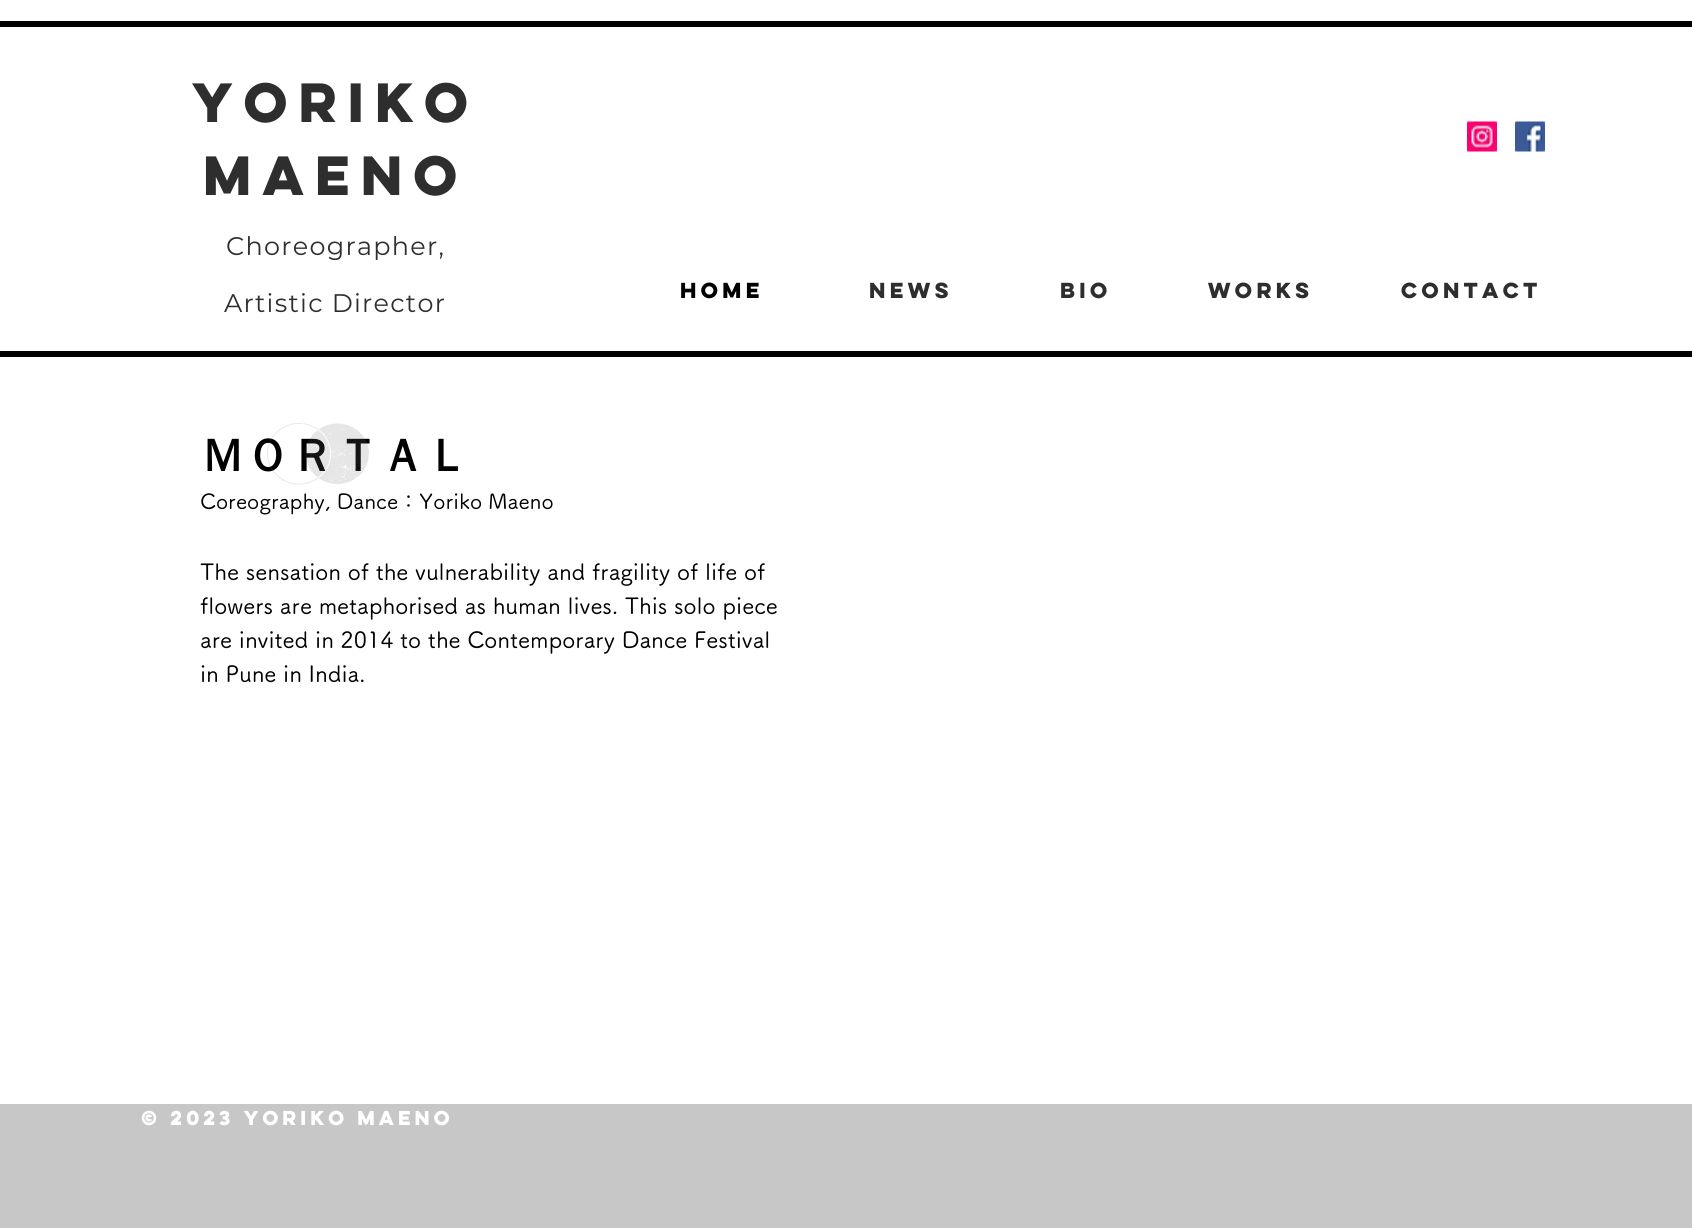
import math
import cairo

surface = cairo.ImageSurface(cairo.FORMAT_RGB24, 1692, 1228)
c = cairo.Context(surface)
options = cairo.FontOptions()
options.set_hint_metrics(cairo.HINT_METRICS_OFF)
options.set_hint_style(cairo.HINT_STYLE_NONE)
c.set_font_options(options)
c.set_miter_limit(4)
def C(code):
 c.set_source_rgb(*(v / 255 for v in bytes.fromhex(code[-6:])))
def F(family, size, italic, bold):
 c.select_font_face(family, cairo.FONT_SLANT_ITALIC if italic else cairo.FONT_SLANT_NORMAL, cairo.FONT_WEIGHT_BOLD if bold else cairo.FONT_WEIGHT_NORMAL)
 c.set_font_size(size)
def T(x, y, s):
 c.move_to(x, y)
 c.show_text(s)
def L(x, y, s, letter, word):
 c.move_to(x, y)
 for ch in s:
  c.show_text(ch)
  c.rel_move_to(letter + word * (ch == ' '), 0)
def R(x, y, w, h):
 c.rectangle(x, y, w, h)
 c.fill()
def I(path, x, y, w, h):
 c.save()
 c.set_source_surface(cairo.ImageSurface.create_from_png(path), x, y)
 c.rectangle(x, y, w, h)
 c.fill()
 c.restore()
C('ffffff')
c.paint()
C('000000')
R(0,21,1692,6)
R(0,351,1692,6)
F('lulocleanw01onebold',49.5,0,1)
C('2f2e2e')
T(192,122,'YORIKo')
T(203,195,'MAENO')
F('Montserrat',25.5,0,0)
L(226,255,'Choreographer,',1.25,0)
L(224,312,'Artistic Director',1.25,0)
I('1.png',1467,121,30,31)
I('2.png',1515,121,30,31)
F('lulocleanw01onebold',19.5,0,1)
C('000000')
T(680,298,'HOME')
C('2f2e2e')
T(869,298,'NEWS')
T(1060,298,'BIO')
T(1208,298,'WORKS')
T(1401,298,'CONTACT')
F('WenQuanYi Zen Hei',45,0,1)
C('000000')
T(200,471,'ＭＯＲＴＡＬ')
I('3.png',267,423,102,62)
F('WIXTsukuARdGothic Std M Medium',21,0,0)
T(200,509,'Coreography, Dance：Yoriko Maeno')
F('WIXTsukuARdGothic Std M Medium',22.5,0,0)
T(200,580,'The sensation of the vulnerability and fragility of life of')
T(200,614,'flowers are metaphorised as human lives. This solo piece')
T(200,648,'are invited in 2014 to the Contemporary Dance Festival')
T(200,682,'in Pune in India.')
C('c7c7c7')
R(0,1104,1692,124)
F('lulocleanw01onebold',18,0,1)
C('ffffff')
T(141,1125,'© 2023 Yoriko Maeno')
surface.write_to_png('o.png')
